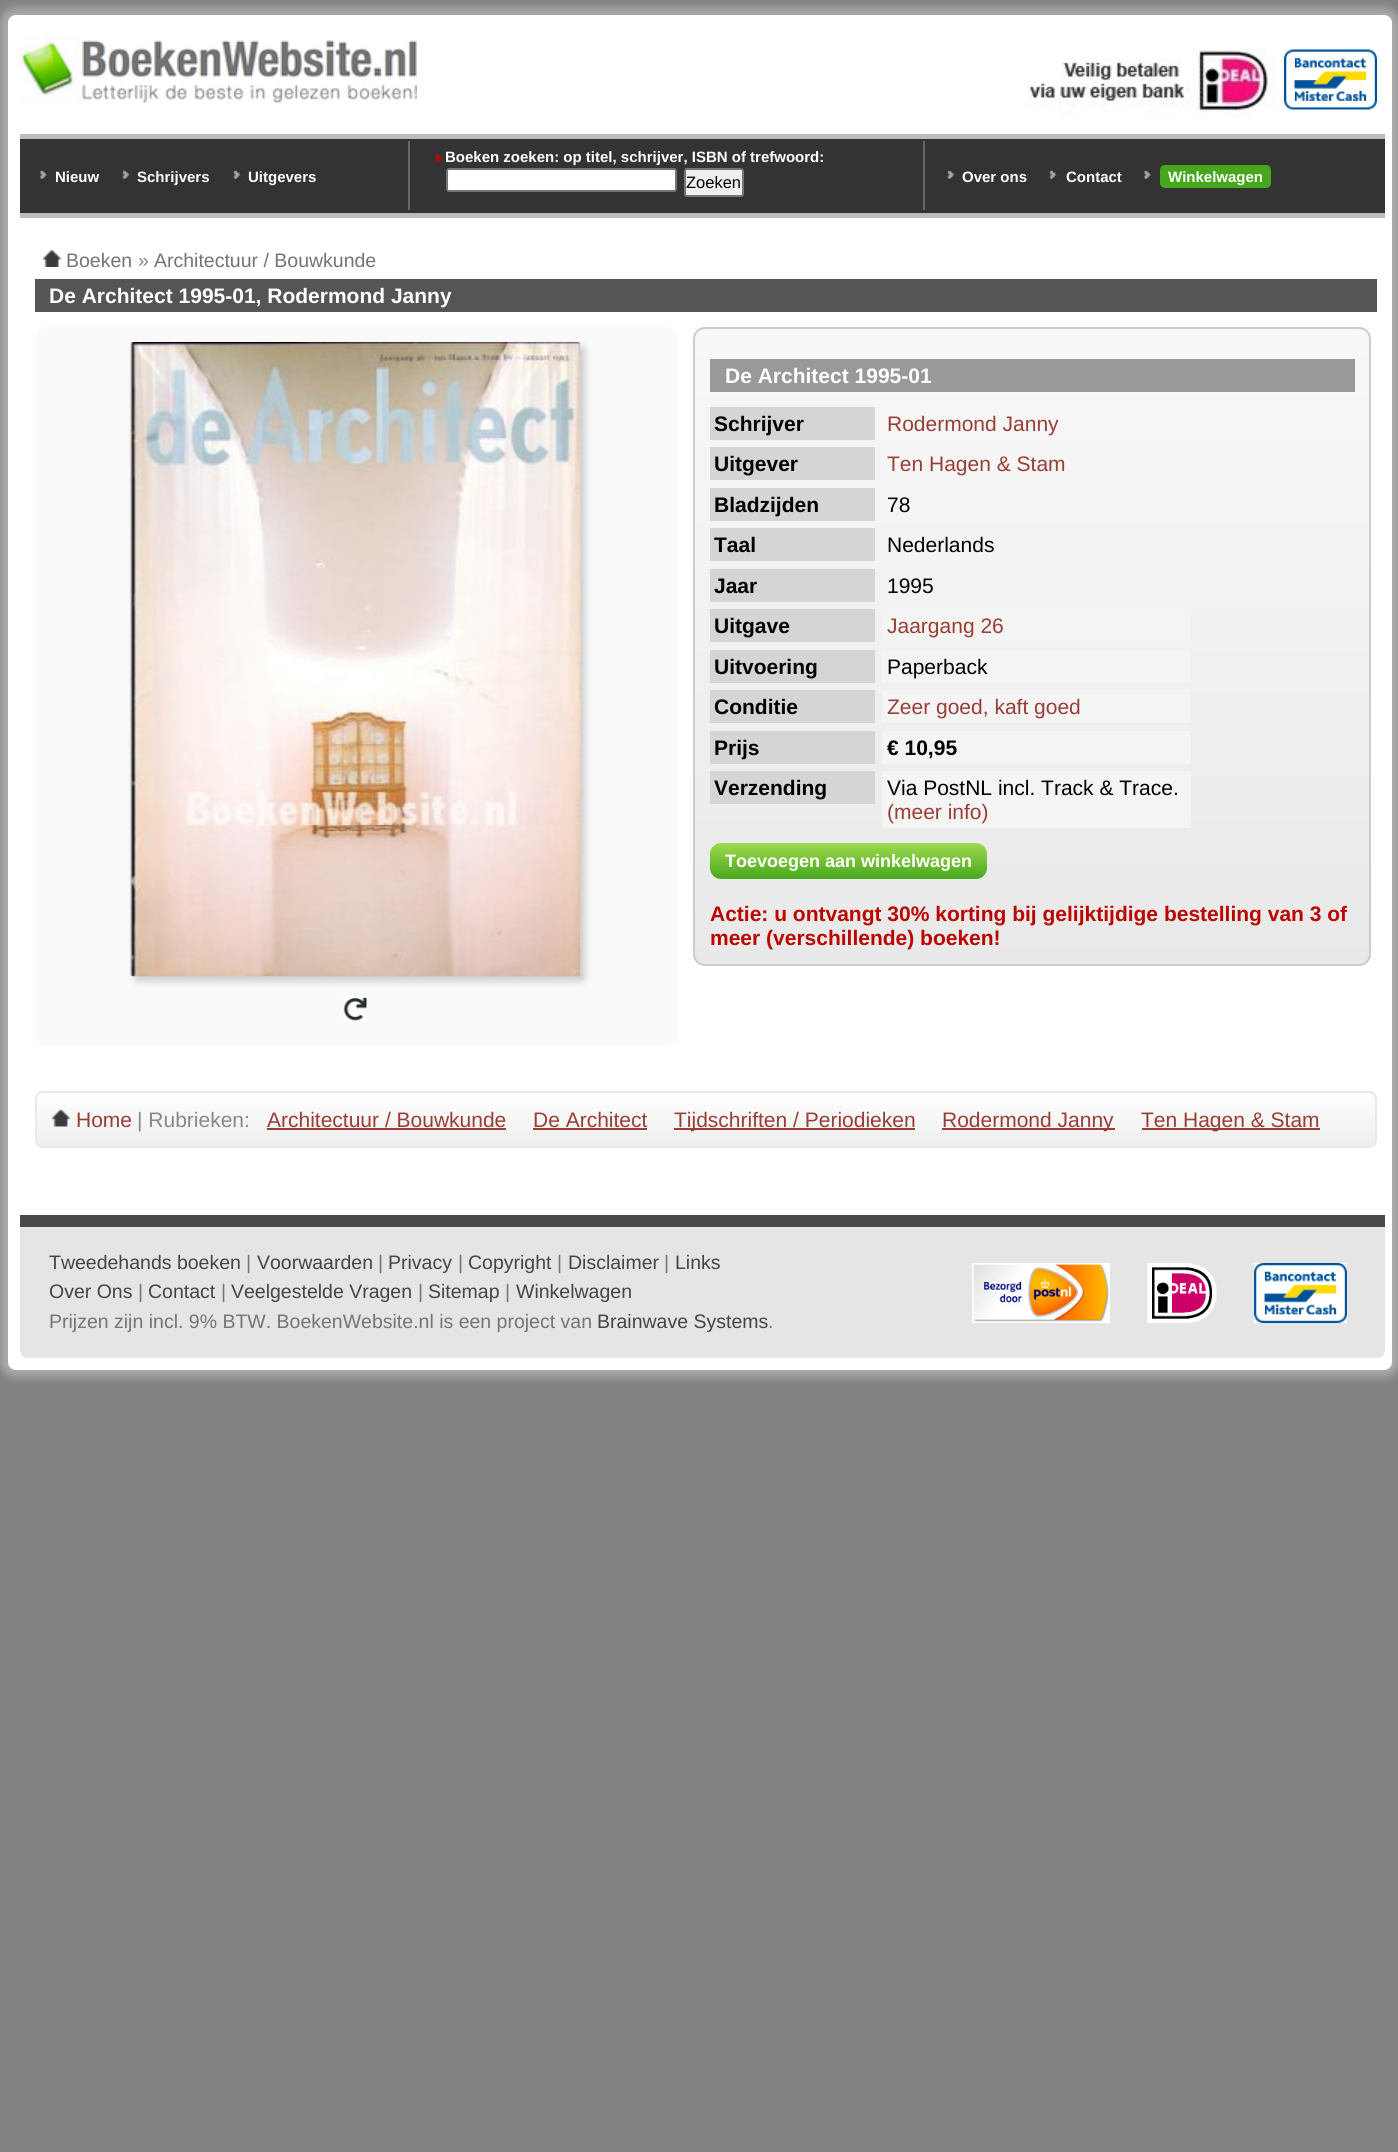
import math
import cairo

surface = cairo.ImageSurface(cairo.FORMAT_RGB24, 1398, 2152)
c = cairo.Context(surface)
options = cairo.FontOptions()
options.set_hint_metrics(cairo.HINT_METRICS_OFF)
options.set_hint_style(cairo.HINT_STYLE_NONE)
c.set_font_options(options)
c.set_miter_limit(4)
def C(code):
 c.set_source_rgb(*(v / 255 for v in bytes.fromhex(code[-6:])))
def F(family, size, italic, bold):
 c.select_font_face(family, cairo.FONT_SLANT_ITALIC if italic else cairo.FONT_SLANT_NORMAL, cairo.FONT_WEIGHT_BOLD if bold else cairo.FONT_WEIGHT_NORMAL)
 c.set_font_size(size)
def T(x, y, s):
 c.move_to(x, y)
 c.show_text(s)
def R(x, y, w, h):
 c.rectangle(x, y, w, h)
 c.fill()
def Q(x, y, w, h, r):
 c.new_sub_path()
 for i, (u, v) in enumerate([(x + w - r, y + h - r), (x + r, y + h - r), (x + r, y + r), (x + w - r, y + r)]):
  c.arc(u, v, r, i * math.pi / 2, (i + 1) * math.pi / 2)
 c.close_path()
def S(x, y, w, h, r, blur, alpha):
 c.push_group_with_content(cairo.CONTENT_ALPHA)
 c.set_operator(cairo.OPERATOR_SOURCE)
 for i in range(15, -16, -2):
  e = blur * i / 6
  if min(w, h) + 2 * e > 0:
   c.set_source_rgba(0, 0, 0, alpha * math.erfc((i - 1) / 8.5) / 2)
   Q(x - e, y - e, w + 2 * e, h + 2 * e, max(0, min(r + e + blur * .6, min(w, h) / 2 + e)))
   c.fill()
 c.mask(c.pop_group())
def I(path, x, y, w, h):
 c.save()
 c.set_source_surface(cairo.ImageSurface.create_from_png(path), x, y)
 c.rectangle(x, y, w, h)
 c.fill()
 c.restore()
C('828282')
c.paint()
C('aaaaaa')
S(0,8,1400,1369,15,4,1)
C('ffffff')
Q(8,15,1384,1355,8)
c.fill()
I('1.png',19,35,398,69)
I('2.png',1026,47,251,71)
I('3.png',1284,49,93,61)
C('333333')
R(20,139,1365,74)
C('bbbbbb')
R(20,134,1365,5)
R(20,213,1365,5)
C('666666')
R(408,141,2,69)
I('4.png',40,170,8,10)
F('Liberation Sans',15,0,1)
C('ffffff')
T(55,182,'Nieuw')
I('5.png',122,170,10,10)
T(137,182,'Schrijvers')
I('5.png',233,170,10,10)
T(248,182,'Uitgevers')
C('666666')
R(923,141,2,69)
I('6.png',430,151,14,13)
C('ffffff')
T(445,162,'Boeken zoeken: op titel, schrijver, ISBN of trefwoord:')
Q(447,169,229,22,2)
c.fill_preserve()
C('767676')
c.stroke()
C('efefef')
Q(685,169,58,27,2)
c.fill_preserve()
C('767676')
c.stroke()
F('Liberation Sans',16.5,0,0)
C('000000')
T(686,188,'Zoeken')
I('5.png',947,170,10,10)
F('Liberation Sans',15,0,1)
C('ffffff')
T(962,182,'Over ons')
I('7.png',1049,170,10,10)
T(1066,182,'Contact')
I('8.png',1144,170,8,10)
C('47a71c')
Q(1160,165,111,23,5)
c.fill()
C('ffffff')
T(1168,182,'Winkelwagen')
I('9.png',42,249,20,18)
F('Liberation Sans',19.5,0,0)
C('747474')
T(66,267,'Boeken')
C('888888')
T(138,267,'»')
C('747474')
T(154,267,'Architectuur / Bouwkunde')
C('555555')
R(35,279,1342,33)
F('Liberation Sans',21,0,1)
C('ffffff')
T(49,303,'De Architect 1995-01, Rodermond Janny')
C('fafafa')
Q(35,327,643,719,12)
c.fill()
C('cccccc')
S(135,347,450,634,3,4,1)
I('10.png',130,342,451,635)
I('11.png',343,996,24,25)
c.save()
Q(693,327,678,639,12)
c.clip()
gradient = cairo.LinearGradient(695,329,695,965)
gradient.add_color_stop_rgba(0,0.973,0.973,0.973,1)
gradient.add_color_stop_rgba(1,0.914,0.914,0.914,1)
c.set_source(gradient)
R(693,329,678,636)
c.restore()
Q(694,328,676,637,11)
C('cccccc')
c.stroke()
C('999999')
R(710,359,645,33)
C('ffffff')
T(725,383,'De Architect 1995-01')
C('d5d5d5')
R(710,407,165,33)
C('000000')
T(714,431,'Schrijver')
F('Liberation Sans',21,0,0)
C('983e35')
T(887,431,'Rodermond Janny')
C('d5d5d5')
R(710,447,165,33)
F('Liberation Sans',21,0,1)
C('000000')
T(714,471,'Uitgever')
F('Liberation Sans',21,0,0)
C('983e35')
T(887,471,'Ten Hagen & Stam')
C('d5d5d5')
R(710,488,165,33)
F('Liberation Sans',21,0,1)
C('000000')
T(714,512,'Bladzijden')
F('Liberation Sans',21,0,0)
T(887,512,'78')
C('d5d5d5')
R(710,528,165,33)
F('Liberation Sans',21,0,1)
C('000000')
T(714,552,'Taal')
F('Liberation Sans',21,0,0)
T(887,552,'Nederlands')
C('d5d5d5')
R(710,569,165,33)
F('Liberation Sans',21,0,1)
C('000000')
T(714,593,'Jaar')
F('Liberation Sans',21,0,0)
T(887,593,'1995')
C('d5d5d5')
R(710,609,165,33)
F('Liberation Sans',21,0,1)
C('000000')
T(714,633,'Uitgave')
C('f4f4f4')
R(882,609,309,33)
F('Liberation Sans',21,0,0)
C('983e35')
T(887,633,'Jaargang 26')
C('d5d5d5')
R(710,650,165,33)
F('Liberation Sans',21,0,1)
C('000000')
T(714,674,'Uitvoering')
C('f4f4f4')
R(882,650,309,33)
F('Liberation Sans',21,0,0)
C('000000')
T(887,674,'Paperback')
C('d5d5d5')
R(710,690,165,33)
F('Liberation Sans',21,0,1)
C('000000')
T(714,714,'Conditie')
C('f4f4f4')
R(882,690,309,33)
F('Liberation Sans',21,0,0)
C('983e35')
T(887,714,'Zeer goed, kaft goed')
C('d5d5d5')
R(710,731,165,33)
F('Liberation Sans',21,0,1)
C('000000')
T(714,755,'Prijs')
C('f4f4f4')
R(882,731,309,33)
C('000000')
T(887,755,'€ 10,95')
C('d5d5d5')
R(710,771,165,33)
C('000000')
T(714,795,'Verzending')
C('f4f4f4')
R(882,771,309,57)
F('Liberation Sans',21,0,0)
C('000000')
T(887,795,'Via PostNL incl. Track & Trace.')
C('983e35')
T(887,819,'(meer info)')
gradient = cairo.LinearGradient(710,843,710,879)
gradient.add_color_stop_rgba(0,0.624,0.855,0.31,1)
gradient.add_color_stop_rgba(1,0.278,0.655,0.11,1)
c.set_source(gradient)
Q(710,843,277,36,11)
c.fill()
F('Liberation Sans',18,0,1)
C('ffffff')
T(725,867,'Toevoegen aan winkelwagen')
F('Liberation Sans',21,0,1)
C('bb0600')
T(710,921,'Actie: u ontvangt 30% korting bij gelijktijdige bestelling van 3 of')
T(710,945,'meer (verschillende) boeken!')
c.save()
Q(35,1091,1342,57,8)
c.clip()
gradient = cairo.LinearGradient(36,1092,36,1146)
gradient.add_color_stop_rgba(0,1,1,1,1)
gradient.add_color_stop_rgba(1,0.933,0.933,0.933,1)
c.set_source(gradient)
R(35,1092,1342,54)
c.restore()
Q(36,1092,1340,55,7)
C('e9e9e9')
c.stroke()
I('12.png',51,1109,20,18)
F('Liberation Sans',21,0,0)
C('983e35')
T(76,1127,'Home')
C('888888')
T(137,1127,'| Rubrieken:')
C('983e35')
T(267,1127,'Architectuur / Bouwkunde')
R(267,1128,239,2)
T(533,1127,'De Architect')
R(533,1128,114,2)
R(674,1128,241,2)
T(674,1127,'Tijdschriften / Periodieken')
R(942,1128,173,2)
T(942,1127,'Rodermond Janny')
R(1142,1128,178,2)
T(1141,1127,'Ten Hagen & Stam')
C('e5e5e5')
c.new_path()
c.move_to(20,1215)
c.line_to(1385,1215)
c.line_to(1385,1350)
c.curve_to(1385,1354.5,1381.5,1358,1377,1358)
c.line_to(28,1358)
c.curve_to(23.5,1358,20,1354.5,20,1350)
c.close_path()
c.fill()
C('494949')
R(20,1215,1365,12)
F('Liberation Sans',19.5,0,0)
C('444444')
T(49,1269,'Tweedehands boeken')
C('747474')
T(246,1269,'|')
C('444444')
T(257,1269,'Voorwaarden')
C('747474')
T(378,1269,'|')
C('444444')
T(388,1269,'Privacy')
C('747474')
T(458,1269,'|')
C('444444')
T(468,1269,'Copyright')
C('747474')
T(557,1269,'|')
C('444444')
T(568,1269,'Disclaimer')
C('747474')
T(664,1269,'|')
C('444444')
T(675,1269,'Links')
I('13.png',972,1263,138,60)
I('14.png',1147,1263,70,60)
I('15.png',1254,1263,93,60)
T(49,1298,'Over Ons')
C('747474')
T(138,1298,'|')
C('444444')
T(148,1298,'Contact')
C('747474')
T(221,1298,'|')
C('444444')
T(231,1298,'Veelgestelde Vragen')
C('747474')
T(418,1298,'|')
C('444444')
T(428,1298,'Sitemap')
C('747474')
T(505,1298,'|')
C('444444')
T(516,1298,'Winkelwagen')
C('747474')
T(49,1328,'Prijzen zijn incl. 9% BTW. BoekenWebsite.nl is een project van')
C('444444')
T(597,1328,'Brainwave Systems')
C('747474')
T(768,1328,'.')
surface.write_to_png('o.png')
